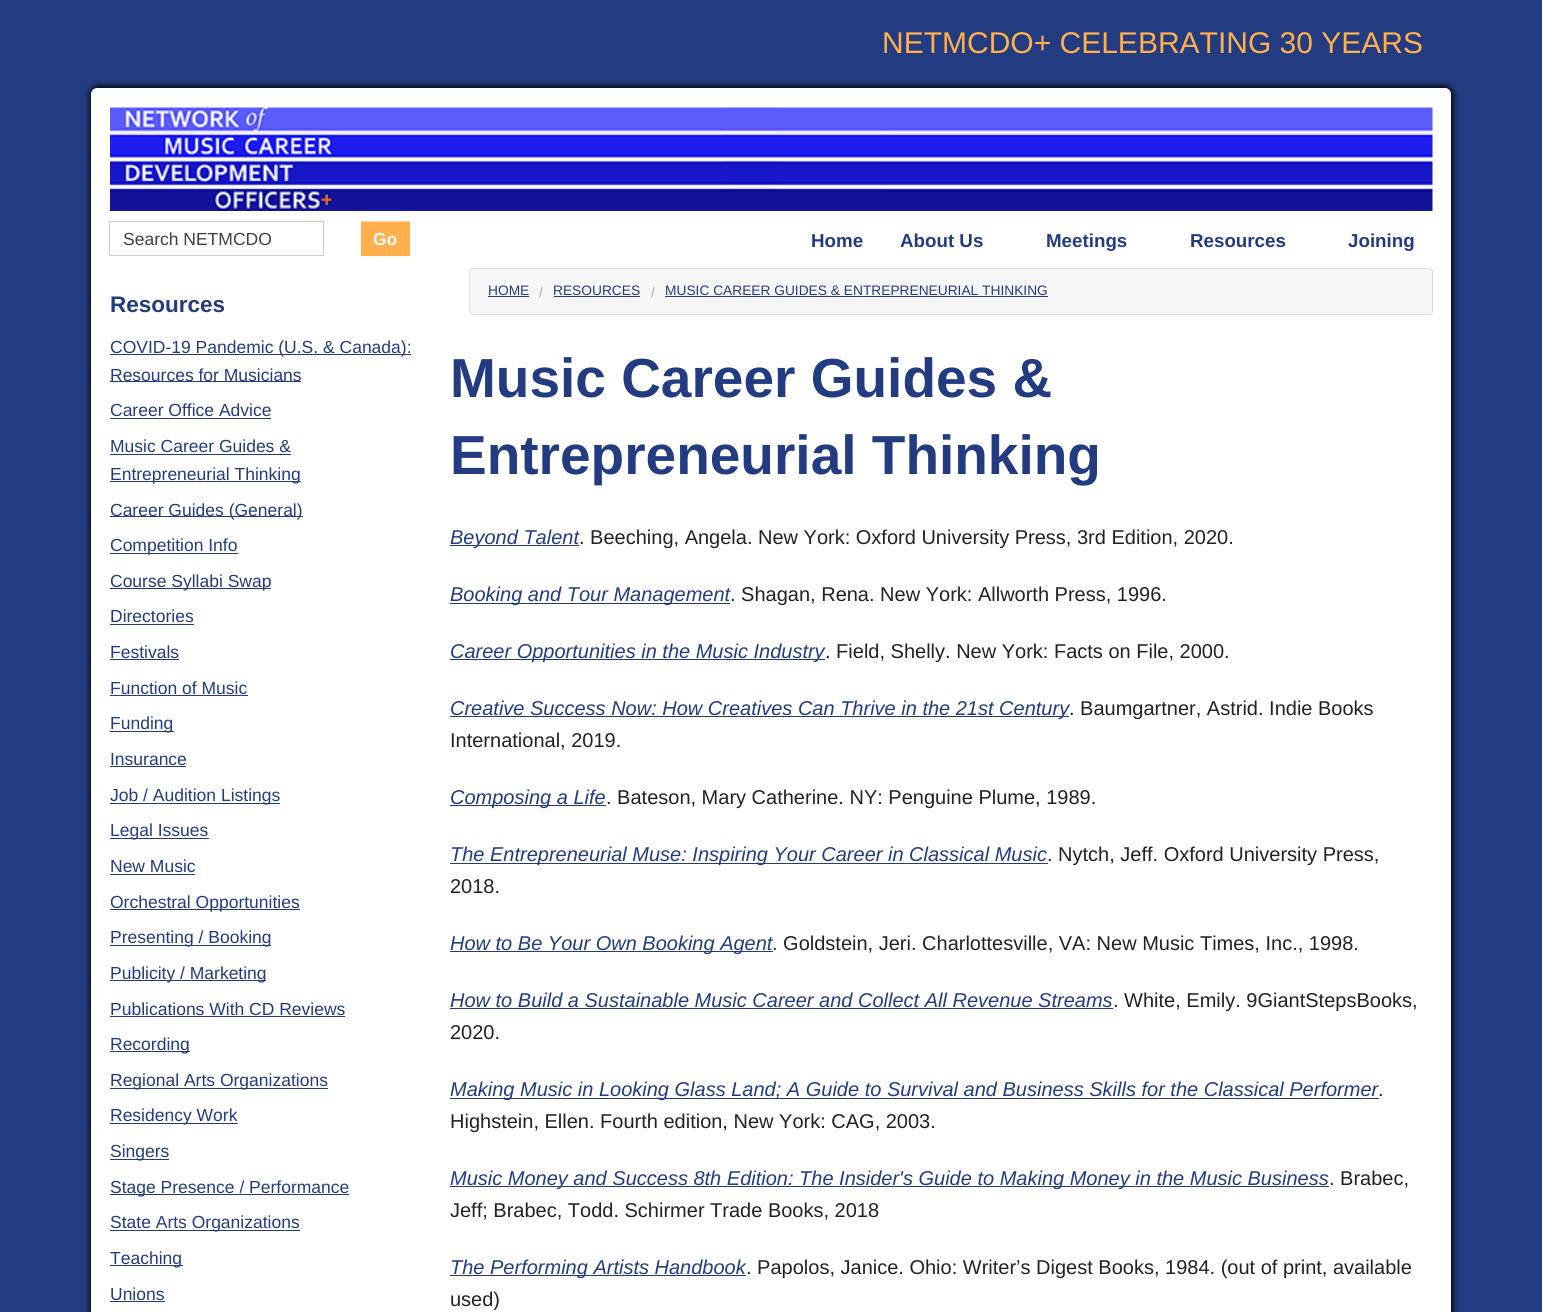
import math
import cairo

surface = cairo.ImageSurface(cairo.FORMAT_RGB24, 1542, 1312)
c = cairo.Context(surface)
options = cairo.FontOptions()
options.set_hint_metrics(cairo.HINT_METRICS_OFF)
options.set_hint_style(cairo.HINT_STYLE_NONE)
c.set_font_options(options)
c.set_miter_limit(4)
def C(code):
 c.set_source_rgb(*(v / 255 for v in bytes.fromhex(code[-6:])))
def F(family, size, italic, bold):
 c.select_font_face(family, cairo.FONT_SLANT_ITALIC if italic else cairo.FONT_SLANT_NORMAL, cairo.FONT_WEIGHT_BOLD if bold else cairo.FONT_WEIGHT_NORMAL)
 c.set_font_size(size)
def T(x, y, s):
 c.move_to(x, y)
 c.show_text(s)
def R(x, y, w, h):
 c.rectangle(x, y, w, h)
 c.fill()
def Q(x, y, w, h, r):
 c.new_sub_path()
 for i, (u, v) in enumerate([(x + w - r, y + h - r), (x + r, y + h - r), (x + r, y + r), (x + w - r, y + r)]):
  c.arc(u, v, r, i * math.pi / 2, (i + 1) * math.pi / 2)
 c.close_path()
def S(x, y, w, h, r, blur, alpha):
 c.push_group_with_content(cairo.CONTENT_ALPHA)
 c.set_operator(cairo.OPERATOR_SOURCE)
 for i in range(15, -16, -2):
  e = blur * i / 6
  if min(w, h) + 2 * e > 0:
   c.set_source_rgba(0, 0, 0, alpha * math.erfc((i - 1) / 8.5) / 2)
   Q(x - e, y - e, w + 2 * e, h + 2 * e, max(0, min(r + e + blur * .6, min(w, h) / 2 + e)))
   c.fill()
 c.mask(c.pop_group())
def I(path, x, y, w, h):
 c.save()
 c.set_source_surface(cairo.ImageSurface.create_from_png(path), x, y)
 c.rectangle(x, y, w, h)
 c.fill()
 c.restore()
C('233c81')
c.paint()
F('Liberation Sans',30,0,0)
C('ffaf4b')
T(882,53,'NETMCDO+ CELEBRATING 30 YEARS')
C('000000')
S(90,86,1363,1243,8,3,1)
C('ffffff')
Q(91,88,1360,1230,6)
c.fill()
I('1.png',110,107,1323,104)
c.rectangle(109.5,221.5,214,34)
C('cccccc')
c.set_line_width(1)
c.stroke()
F('Liberation Sans',17.5,0,0)
C('404040')
T(123,245,'Search NETMCDO')
C('ffaf4b')
R(361,222,49,34)
C('ffd7a5')
R(361,221,49,1)
F('Liberation Sans',17.5,0,1)
C('ffffff')
T(373,245,'Go')
F('Liberation Sans',18.75,0,1)
C('233c81')
T(811,247,'Home')
T(900,247,'About Us')
T(1046,247,'Meetings')
T(1190,247,'Resources')
T(1348,247,'Joining')
F('Liberation Sans',22.5,0,1)
T(110,312,'Resources')
R(110,354,301,1)
F('Liberation Sans',17.5,0,0)
T(110,353,'COVID-19 Pandemic (U.S. & Canada):')
R(110,381,191,1)
T(110,381,'Resources for Musicians')
T(110,416,'Career Office Advice')
R(110,418,161,1)
T(110,452,'Music Career Guides &')
R(110,454,181,1)
R(110,481,191,1)
T(110,480,'Entrepreneurial Thinking')
R(110,516,193,1)
T(110,516,'Career Guides (General)')
R(110,553,128,1)
T(110,551,'Competition Info')
R(110,588,161,1)
T(110,587,'Course Syllabi Swap')
T(110,622,'Directories')
R(110,624,84,1)
T(110,658,'Festivals')
R(110,659,69,1)
T(110,694,'Function of Music')
R(110,695,138,1)
R(110,731,64,1)
T(110,729,'Funding')
T(110,765,'Insurance')
R(110,766,76,1)
R(110,803,170,1)
T(110,801,'Job / Audition Listings')
R(110,838,99,1)
T(110,836,'Legal Issues')
T(110,872,'New Music')
R(110,874,85,1)
R(110,909,190,1)
T(110,908,'Orchestral Opportunities')
R(110,945,161,1)
T(110,943,'Presenting / Booking')
R(110,980,156,1)
T(110,979,'Publicity / Marketing')
T(110,1015,'Publications With CD Reviews')
R(110,1016,235,1)
R(110,1051,80,1)
T(110,1050,'Recording')
R(110,1088,218,1)
T(110,1086,'Regional Arts Organizations')
R(110,1123,128,1)
T(110,1121,'Residency Work')
R(110,1159,59,1)
T(110,1157,'Singers')
R(110,1194,239,1)
T(110,1193,'Stage Presence / Performance')
R(110,1230,190,1)
T(110,1228,'State Arts Organizations')
R(110,1265,73,1)
T(110,1264,'Teaching')
T(110,1300,'Unions')
R(110,1301,55,1)
C('f6f6f6')
Q(469.5,268.5,963,46,3.5)
c.fill_preserve()
C('dcdcdc')
c.stroke()
F('Liberation Sans',13.75,0,0)
C('233c81')
T(488,295,'HOME')
R(488,296,41,1)
C('aaaaaa')
T(539,297,'/')
C('233c81')
T(553,295,'RESOURCES')
R(554,296,86,1)
C('aaaaaa')
T(651,297,'/')
C('233c81')
T(665,295,'MUSIC CAREER GUIDES & ENTREPRENEURIAL THINKING')
R(665,296,383,1)
F('Liberation Sans',55,0,1)
T(450,397,'Music Career Guides &')
T(450,474,'Entrepreneurial Thinking')
R(450,545,129,1)
F('Liberation Sans',20,1,0)
T(450,544,'Beyond Talent')
F('Liberation Sans',20,0,0)
C('222222')
T(579,544,'. Beeching, Angela. New York: Oxford University Press, 3rd Edition, 2020.')
C('233c81')
R(450,603,280,1)
F('Liberation Sans',20,1,0)
T(450,601,'Booking and Tour Management')
F('Liberation Sans',20,0,0)
C('222222')
T(730,601,'. Shagan, Rena. New York: Allworth Press, 1996.')
C('233c81')
R(450,659,375,1)
F('Liberation Sans',20,1,0)
T(450,658,'Career Opportunities in the Music Industry')
F('Liberation Sans',20,0,0)
C('222222')
T(825,658,'. Field, Shelly. New York: Facts on File, 2000.')
C('233c81')
R(450,716,619,1)
F('Liberation Sans',20,1,0)
T(450,715,'Creative Success Now: How Creatives Can Thrive in the 21st Century')
F('Liberation Sans',20,0,0)
C('222222')
T(1069,715,'. Baumgartner, Astrid. Indie Books')
T(450,747,'International, 2019.')
C('233c81')
R(450,805,156,1)
F('Liberation Sans',20,1,0)
T(450,804,'Composing a Life')
F('Liberation Sans',20,0,0)
C('222222')
T(606,804,'. Bateson, Mary Catherine. NY: Penguine Plume, 1989.')
C('233c81')
R(450,863,598,1)
F('Liberation Sans',20,1,0)
T(450,861,'The Entrepreneurial Muse: Inspiring Your Career in Classical Music')
F('Liberation Sans',20,0,0)
C('222222')
T(1047,861,'. Nytch, Jeff. Oxford University Press,')
T(450,893,'2018.')
C('233c81')
R(450,951,323,1)
F('Liberation Sans',20,1,0)
T(450,950,'How to Be Your Own Booking Agent')
F('Liberation Sans',20,0,0)
C('222222')
T(772,950,'. Goldstein, Jeri. Charlottesville, VA: New Music Times, Inc., 1998.')
F('Liberation Sans',20,1,0)
C('233c81')
T(450,1007,'How to Build a Sustainable Music Career and Collect All Revenue Streams')
R(450,1008,663,1)
F('Liberation Sans',20,0,0)
C('222222')
T(1113,1007,'. White, Emily. 9GiantStepsBooks,')
T(450,1039,'2020.')
C('233c81')
R(450,1098,929,1)
F('Liberation Sans',20,1,0)
T(450,1096,'Making Music in Looking Glass Land; A Guide to Survival and Business Skills for the Classical Performer')
F('Liberation Sans',20,0,0)
C('222222')
T(1378,1096,'.')
T(450,1128,'Highstein, Ellen. Fourth edition, New York: CAG, 2003.')
C('233c81')
R(450,1186,879,1)
F('Liberation Sans',20,1,0)
T(450,1185,'Music Money and Success 8th Edition: The Insider\'s Guide to Making Money in the Music Business')
F('Liberation Sans',20,0,0)
C('222222')
T(1329,1185,'. Brabec,')
T(450,1217,'Jeff; Brabec, Todd. Schirmer Trade Books, 2018')
C('233c81')
R(450,1275,296,1)
F('Liberation Sans',20,1,0)
T(450,1274,'The Performing Artists Handbook')
F('Liberation Sans',20,0,0)
C('222222')
T(746,1274,'. Papolos, Janice. Ohio: Writer’s Digest Books, 1984. (out of print, available')
T(450,1306,'used)')
surface.write_to_png('o.png')
